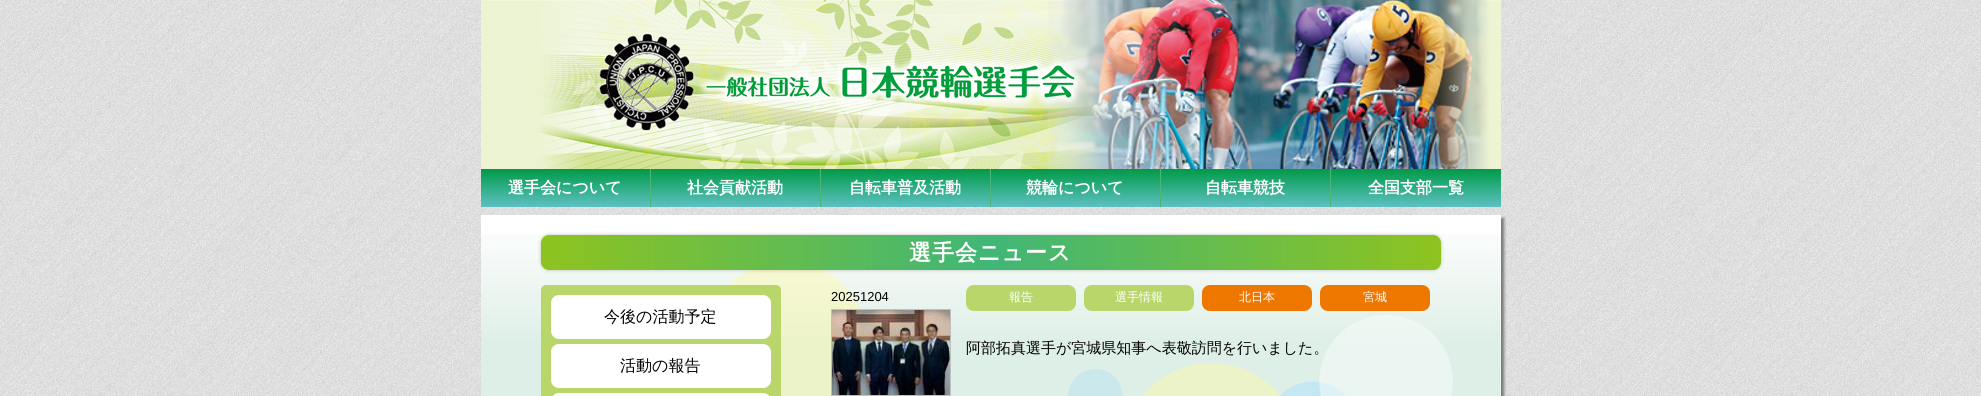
import math
import cairo

surface = cairo.ImageSurface(cairo.FORMAT_RGB24, 1981, 396)
c = cairo.Context(surface)
options = cairo.FontOptions()
options.set_hint_metrics(cairo.HINT_METRICS_OFF)
options.set_hint_style(cairo.HINT_STYLE_NONE)
c.set_font_options(options)
c.set_miter_limit(4)
def C(code):
 c.set_source_rgb(*(v / 255 for v in bytes.fromhex(code[-6:])))
def F(family, size, italic, bold):
 c.select_font_face(family, cairo.FONT_SLANT_ITALIC if italic else cairo.FONT_SLANT_NORMAL, cairo.FONT_WEIGHT_BOLD if bold else cairo.FONT_WEIGHT_NORMAL)
 c.set_font_size(size)
def T(x, y, s):
 c.move_to(x, y)
 c.show_text(s)
def L(x, y, s, letter, word):
 c.move_to(x, y)
 for ch in s:
  c.show_text(ch)
  c.rel_move_to(letter + word * (ch == ' '), 0)
def R(x, y, w, h):
 c.rectangle(x, y, w, h)
 c.fill()
def Q(x, y, w, h, r):
 c.new_sub_path()
 for i, (u, v) in enumerate([(x + w - r, y + h - r), (x + r, y + h - r), (x + r, y + r), (x + w - r, y + r)]):
  c.arc(u, v, r, i * math.pi / 2, (i + 1) * math.pi / 2)
 c.close_path()
def S(x, y, w, h, r, blur, alpha):
 c.push_group_with_content(cairo.CONTENT_ALPHA)
 c.set_operator(cairo.OPERATOR_SOURCE)
 for i in range(15, -16, -2):
  e = blur * i / 6
  if min(w, h) + 2 * e > 0:
   c.set_source_rgba(0, 0, 0, alpha * math.erfc((i - 1) / 8.5) / 2)
   Q(x - e, y - e, w + 2 * e, h + 2 * e, max(0, min(r + e + blur * .6, min(w, h) / 2 + e)))
   c.fill()
 c.mask(c.pop_group())
def I(path, x, y, w, h):
 c.save()
 c.set_source_surface(cairo.ImageSurface.create_from_png(path), x, y)
 c.rectangle(x, y, w, h)
 c.fill()
 c.restore()
C('ffffff')
c.paint()
I('1.png',0,0,1981,396)
I('2.png',481,0,1020,169)
C('4bb677')
R(650,169,1,38)
gradient = cairo.LinearGradient(566,169,566,207)
gradient.add_color_stop_rgba(0,0,0.604,0.278,1)
gradient.add_color_stop_rgba(1,0.369,0.757,0.765,1)
c.set_source(gradient)
R(481,169,169,38)
F('WenQuanYi Zen Hei',16,0,1)
C('ffffff')
T(508,193,'選手会について')
C('4bb677')
R(820,169,1,38)
gradient = cairo.LinearGradient(736,169,736,207)
gradient.add_color_stop_rgba(0,0,0.604,0.278,1)
gradient.add_color_stop_rgba(1,0.369,0.757,0.765,1)
c.set_source(gradient)
R(651,169,169,38)
C('ffffff')
T(687,193,'社会貢献活動')
C('4bb677')
R(990,169,1,38)
gradient = cairo.LinearGradient(906,169,906,207)
gradient.add_color_stop_rgba(0,0,0.604,0.278,1)
gradient.add_color_stop_rgba(1,0.369,0.757,0.765,1)
c.set_source(gradient)
R(821,169,169,38)
C('ffffff')
T(849,193,'自転車普及活動')
C('4bb677')
R(1160,169,1,38)
gradient = cairo.LinearGradient(1076,169,1076,207)
gradient.add_color_stop_rgba(0,0,0.604,0.278,1)
gradient.add_color_stop_rgba(1,0.369,0.757,0.765,1)
c.set_source(gradient)
R(991,169,169,38)
C('ffffff')
T(1026,193,'競輪について')
C('4bb677')
R(1330,169,1,38)
gradient = cairo.LinearGradient(1246,169,1246,207)
gradient.add_color_stop_rgba(0,0,0.604,0.278,1)
gradient.add_color_stop_rgba(1,0.369,0.757,0.765,1)
c.set_source(gradient)
R(1161,169,169,38)
C('ffffff')
T(1205,193,'自転車競技')
gradient = cairo.LinearGradient(1416,169,1416,207)
gradient.add_color_stop_rgba(0,0,0.604,0.278,1)
gradient.add_color_stop_rgba(1,0.369,0.757,0.765,1)
c.set_source(gradient)
R(1331,169,170,38)
C('ffffff')
T(1368,193,'全国支部一覧')
C('777777')
S(484,218,1020,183,0,1.5,1)
C('ffffff')
R(481,215,1020,19)
I('3.png',481,234,1020,162)
C('000000')
S(541,235,900,35,8,2,.23)
gradient = cairo.LinearGradient(541,253,1441,252)
gradient.add_color_stop_rgba(0,0.557,0.765,0.122,1)
gradient.add_color_stop_rgba(.5,0.251,0.714,0.467,1)
gradient.add_color_stop_rgba(1,0.557,0.765,0.122,1)
c.set_source(gradient)
Q(541,235,900,35,8)
c.fill()
F('WenQuanYi Zen Hei',22,0,1)
C('ffffff')
L(909,260,'選手会ニュース',1,0)
C('b8d66a')
Q(541,285,240,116,5)
c.fill()
C('ffffff')
Q(551,295,220,44,8)
c.fill()
F('WenQuanYi Zen Hei Medium',16,0,0)
C('000000')
T(604,322,'今後の活動予定')
C('ffffff')
Q(551,344,220,44,8)
c.fill()
C('000000')
T(620,371,'活動の報告')
C('ffffff')
Q(551,393,220,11,8)
c.fill()
F('Liberation Sans',13,0,0)
C('000000')
T(831,301,'20251204')
c.rectangle(831.5,309.5,119,86)
C('c0c0c0')
c.set_line_width(1)
c.stroke()
I('4.png',832,310,118,85)
C('b8d66a')
Q(966,285,110,26,8)
c.fill()
F('WenQuanYi Zen Hei Medium',12,0,0)
C('ffffff')
T(1009,301,'報告')
C('b8d66a')
Q(1084,285,110,26,8)
c.fill()
C('ffffff')
T(1115,301,'選手情報')
C('ee7700')
Q(1202,285,110,26,8)
c.fill()
C('ffffff')
T(1239,301,'北日本')
C('ee7700')
Q(1320,285,110,26,8)
c.fill()
C('ffffff')
T(1363,301,'宮城')
F('WenQuanYi Zen Hei Medium',15,0,0)
C('000000')
T(966,353,'阿部拓真選手が宮城県知事へ表敬訪問を行いました。')
surface.write_to_png('o.png')
